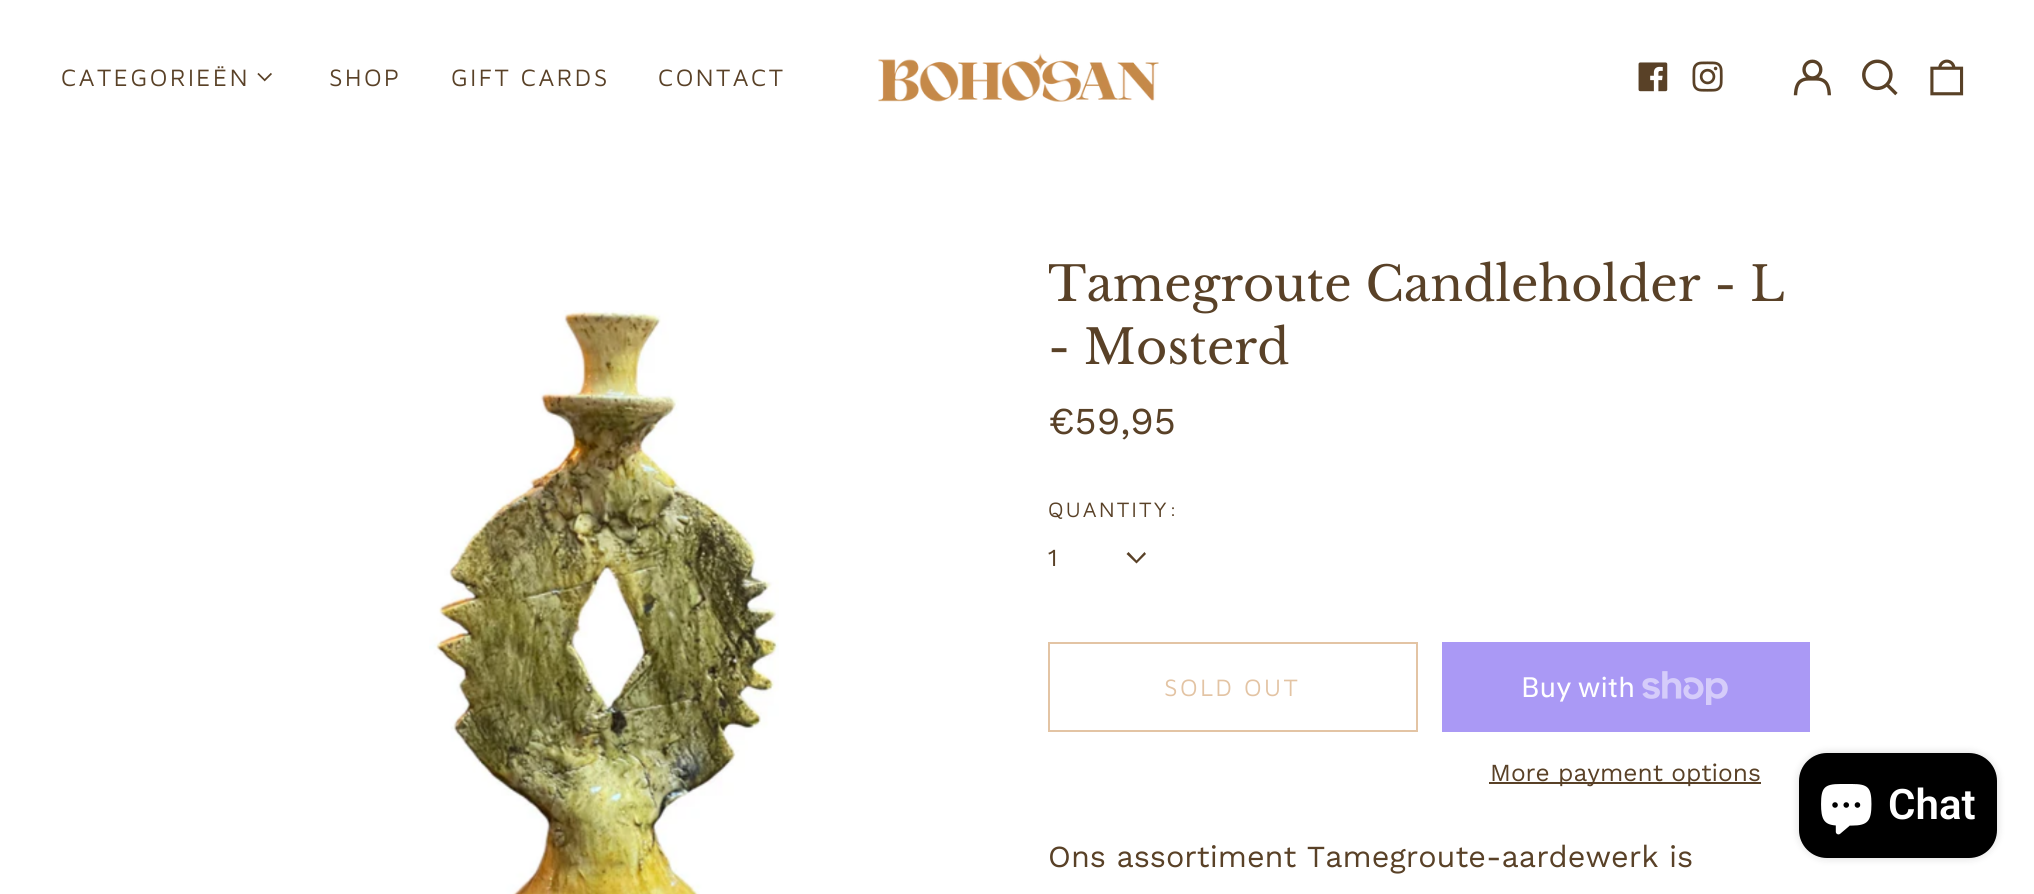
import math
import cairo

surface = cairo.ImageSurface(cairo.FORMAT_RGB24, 2034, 894)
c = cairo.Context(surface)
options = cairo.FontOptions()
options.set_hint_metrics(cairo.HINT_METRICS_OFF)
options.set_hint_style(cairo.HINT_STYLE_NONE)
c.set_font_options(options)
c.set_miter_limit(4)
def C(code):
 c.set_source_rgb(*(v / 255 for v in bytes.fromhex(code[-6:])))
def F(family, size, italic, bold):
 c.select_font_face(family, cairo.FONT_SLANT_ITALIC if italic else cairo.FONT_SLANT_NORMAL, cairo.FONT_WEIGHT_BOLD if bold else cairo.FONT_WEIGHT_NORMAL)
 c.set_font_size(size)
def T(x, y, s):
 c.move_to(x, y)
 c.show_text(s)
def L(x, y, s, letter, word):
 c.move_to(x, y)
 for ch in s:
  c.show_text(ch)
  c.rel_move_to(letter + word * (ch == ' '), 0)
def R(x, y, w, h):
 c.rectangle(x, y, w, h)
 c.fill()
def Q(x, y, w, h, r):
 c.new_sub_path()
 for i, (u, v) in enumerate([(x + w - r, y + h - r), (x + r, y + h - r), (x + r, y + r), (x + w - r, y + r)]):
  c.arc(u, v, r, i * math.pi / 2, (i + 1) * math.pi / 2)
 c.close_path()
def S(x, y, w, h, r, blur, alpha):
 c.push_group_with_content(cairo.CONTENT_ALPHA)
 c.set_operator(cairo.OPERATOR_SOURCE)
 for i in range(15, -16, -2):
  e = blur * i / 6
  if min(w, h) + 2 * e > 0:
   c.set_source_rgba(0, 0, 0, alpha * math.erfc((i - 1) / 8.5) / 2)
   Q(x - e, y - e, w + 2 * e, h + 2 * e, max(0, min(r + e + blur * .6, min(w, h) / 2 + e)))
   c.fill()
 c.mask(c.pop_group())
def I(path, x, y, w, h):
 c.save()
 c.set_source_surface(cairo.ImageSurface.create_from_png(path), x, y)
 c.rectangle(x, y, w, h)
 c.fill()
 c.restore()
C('ffffff')
c.paint()
F('Maven Pro',24.5,0,0)
C('594127')
L(61,86,'CATEGORIEËN',2.5,0)
I('1.png',257,72,15,10)
L(329,86,'SHOP',2.5,0)
L(451,86,'GIFT CARDS',2.5,0)
L(658,86,'CONTACT',2.5,0)
I('2.png',878,53,281,49)
I('3.png',1638,62,30,30)
I('4.png',1692,61,31,31)
I('5.png',1793,59,38,37)
I('6.png',1862,59,36,37)
I('7.png',1930,59,34,37)
I('8.png',429,310,350,584)
F('Libre Baskerville',47.8,0,0)
T(1048,301,'Tamegroute Candleholder - L')
T(1048,364,'- Mosterd')
F('Work Sans',38,0,0)
T(1048,434,'€59,95')
F('Maven Pro',21.5,0,0)
L(1048,517,'QUANTITY:',2.25,0)
c.set_fill_rule(cairo.FILL_RULE_EVEN_ODD)
c.new_path()
c.move_to(1144.5,552)
c.line_to(1146,554)
c.line_to(1136.5,563.5)
c.line_to(1126.5,554)
c.line_to(1128.5,552)
c.line_to(1136.5,560.5)
c.close_path()
c.fill()
F('Work Sans',24.5,0,0)
T(1048,566,'1')
c.rectangle(1049,643,368,88)
C('e3c4a4')
c.stroke()
F('Maven Pro',24.5,0,0)
L(1164,696,'SOLD OUT',2.5,0)
C('aa99f5')
R(1442,642,368,90)
F('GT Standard',28,0,0)
C('ffffff')
T(1521,697,'Buy with')
I('9.png',1642,671,86,34)
C('594127')
R(1489,782,272,2)
F('Work Sans',24.5,0,0)
T(1490,781,'More payment options')
F('Work Sans',30.6,0,0)
T(1048,867,'Ons assortiment Tamegroute-aardewerk is')
C('000000')
S(1799,753,198,105,28,4.5,.15)
C('000000')
Q(1799,753,198,105,28)
c.fill()
I('10.png',1821,784,51,51)
F('Roboto SemiBold',42,0,0)
C('ffffff')
T(1888,819,'Chat')
surface.write_to_png('o.png')
